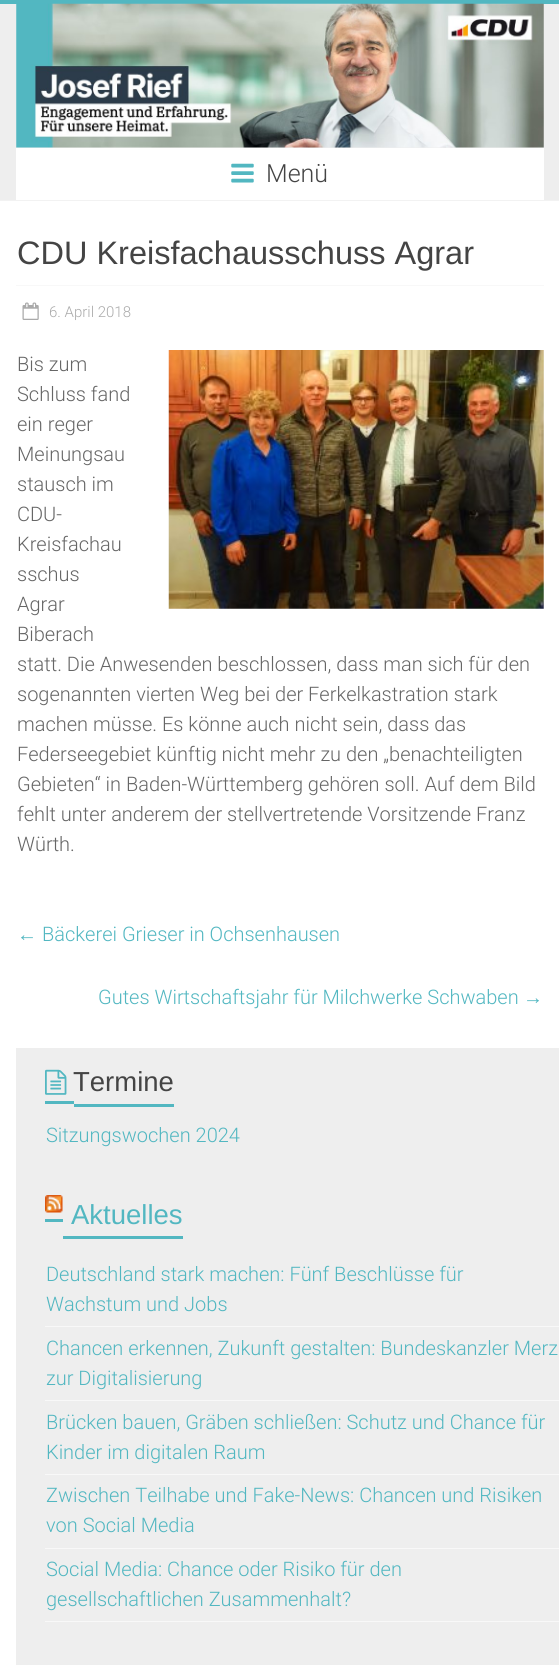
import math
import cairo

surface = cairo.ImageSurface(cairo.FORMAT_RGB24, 559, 1665)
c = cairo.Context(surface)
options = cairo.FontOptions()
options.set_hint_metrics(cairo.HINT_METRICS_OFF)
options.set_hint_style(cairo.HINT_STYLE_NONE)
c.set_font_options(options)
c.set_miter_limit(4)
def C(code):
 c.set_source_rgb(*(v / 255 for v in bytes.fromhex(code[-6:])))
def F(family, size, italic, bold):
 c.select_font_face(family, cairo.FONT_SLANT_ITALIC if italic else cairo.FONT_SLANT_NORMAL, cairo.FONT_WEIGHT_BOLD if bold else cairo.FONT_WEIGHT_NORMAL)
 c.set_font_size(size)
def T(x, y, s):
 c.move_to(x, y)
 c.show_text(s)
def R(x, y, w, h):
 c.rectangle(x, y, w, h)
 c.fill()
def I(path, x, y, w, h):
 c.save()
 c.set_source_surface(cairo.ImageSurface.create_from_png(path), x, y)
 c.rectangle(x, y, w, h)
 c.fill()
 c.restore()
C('ffffff')
c.paint()
C('52b7c1')
R(0,0,559,4)
C('eeeeee')
R(0,4,559,196)
C('f2f2f2')
R(0,200,559,1)
I('1.png',16,3,528,145)
C('ffffff')
R(16,148,528,52)
I('2.png',231,163,23,20)
F('Roboto Light',25,0,0)
C('444444')
T(266,182,'Menü')
F('Liberation Sans',32.5,0,0)
T(17,264,'CDU Kreisfachausschuss Agrar')
C('f8f8f8')
R(16,285,528,1)
I('3.png',22,302,17,18)
F('Roboto Light',15,0,0)
C('aaaaaa')
T(49,317,'6. April 2018')
F('Roboto Light',20,0,0)
C('666666')
T(17,371,'Bis zum')
I('4.png',168,350,376,259)
T(17,401,'Schluss fand')
T(17,431,'ein reger')
T(17,461,'Meinungsau')
T(17,491,'stausch im')
T(17,521,'CDU-')
T(17,551,'Kreisfachau')
T(17,581,'sschus')
T(17,611,'Agrar')
T(17,641,'Biberach')
T(17,671,'statt. Die Anwesenden beschlossen, dass man sich für den')
T(17,701,'sogenannten vierten Weg bei der Ferkelkastration stark')
T(17,731,'machen müsse. Es könne auch nicht sein, dass das')
T(17,761,'Federseegebiet künftig nicht mehr zu den „benachteiligten')
T(17,791,'Gebieten“ in Baden-Württemberg gehören soll. Auf dem Bild')
T(17,821,'fehlt unter anderem der stellvertretende Vorsitzende Franz')
T(17,851,'Würth.')
F('Liberation Sans',20,0,0)
C('52b7c1')
T(17,941,'←')
F('Roboto Light',20,0,0)
T(42,941,'Bäckerei Grieser in Ochsenhausen')
T(98,1004,'Gutes Wirtschaftsjahr für Milchwerke Schwaben')
F('Liberation Sans',20,0,0)
T(523,1004,'→')
C('eeeeee')
R(16,1048,543,617)
I('5.png',45,1069,22,26)
F('Liberation Sans',27.5,0,0)
C('444444')
T(73,1091,'Termine')
C('52b7c1')
R(45,1101,29,3)
R(74,1104,100,3)
F('Roboto Light',20,0,0)
T(46,1142,'Sitzungswochen 2024')
I('6.png',45,1195,18,18)
F('Liberation Sans',27.5,0,0)
T(71,1224,'Aktuelles')
R(45,1219,18,3)
R(63,1236,120,3)
C('f8f8f8')
R(45,1326,514,1)
F('Roboto Light',20,0,0)
C('52b7c1')
T(46,1281,'Deutschland stark machen: Fünf Beschlüsse für')
T(46,1311,'Wachstum und Jobs')
C('f8f8f8')
R(45,1400,514,1)
C('52b7c1')
T(46,1355,'Chancen erkennen, Zukunft gestalten: Bundeskanzler Merz')
T(46,1385,'zur Digitalisierung')
C('f8f8f8')
R(45,1474,514,1)
C('52b7c1')
T(46,1429,'Brücken bauen, Gräben schließen: Schutz und Chance für')
T(46,1459,'Kinder im digitalen Raum')
C('f8f8f8')
R(45,1548,514,1)
C('52b7c1')
T(46,1502,'Zwischen Teilhabe und Fake-News: Chancen und Risiken')
T(46,1532,'von Social Media')
C('f8f8f8')
R(45,1621,514,1)
C('52b7c1')
T(46,1576,'Social Media: Chance oder Risiko für den')
T(46,1606,'gesellschaftlichen Zusammenhalt?')
surface.write_to_png('o.png')
